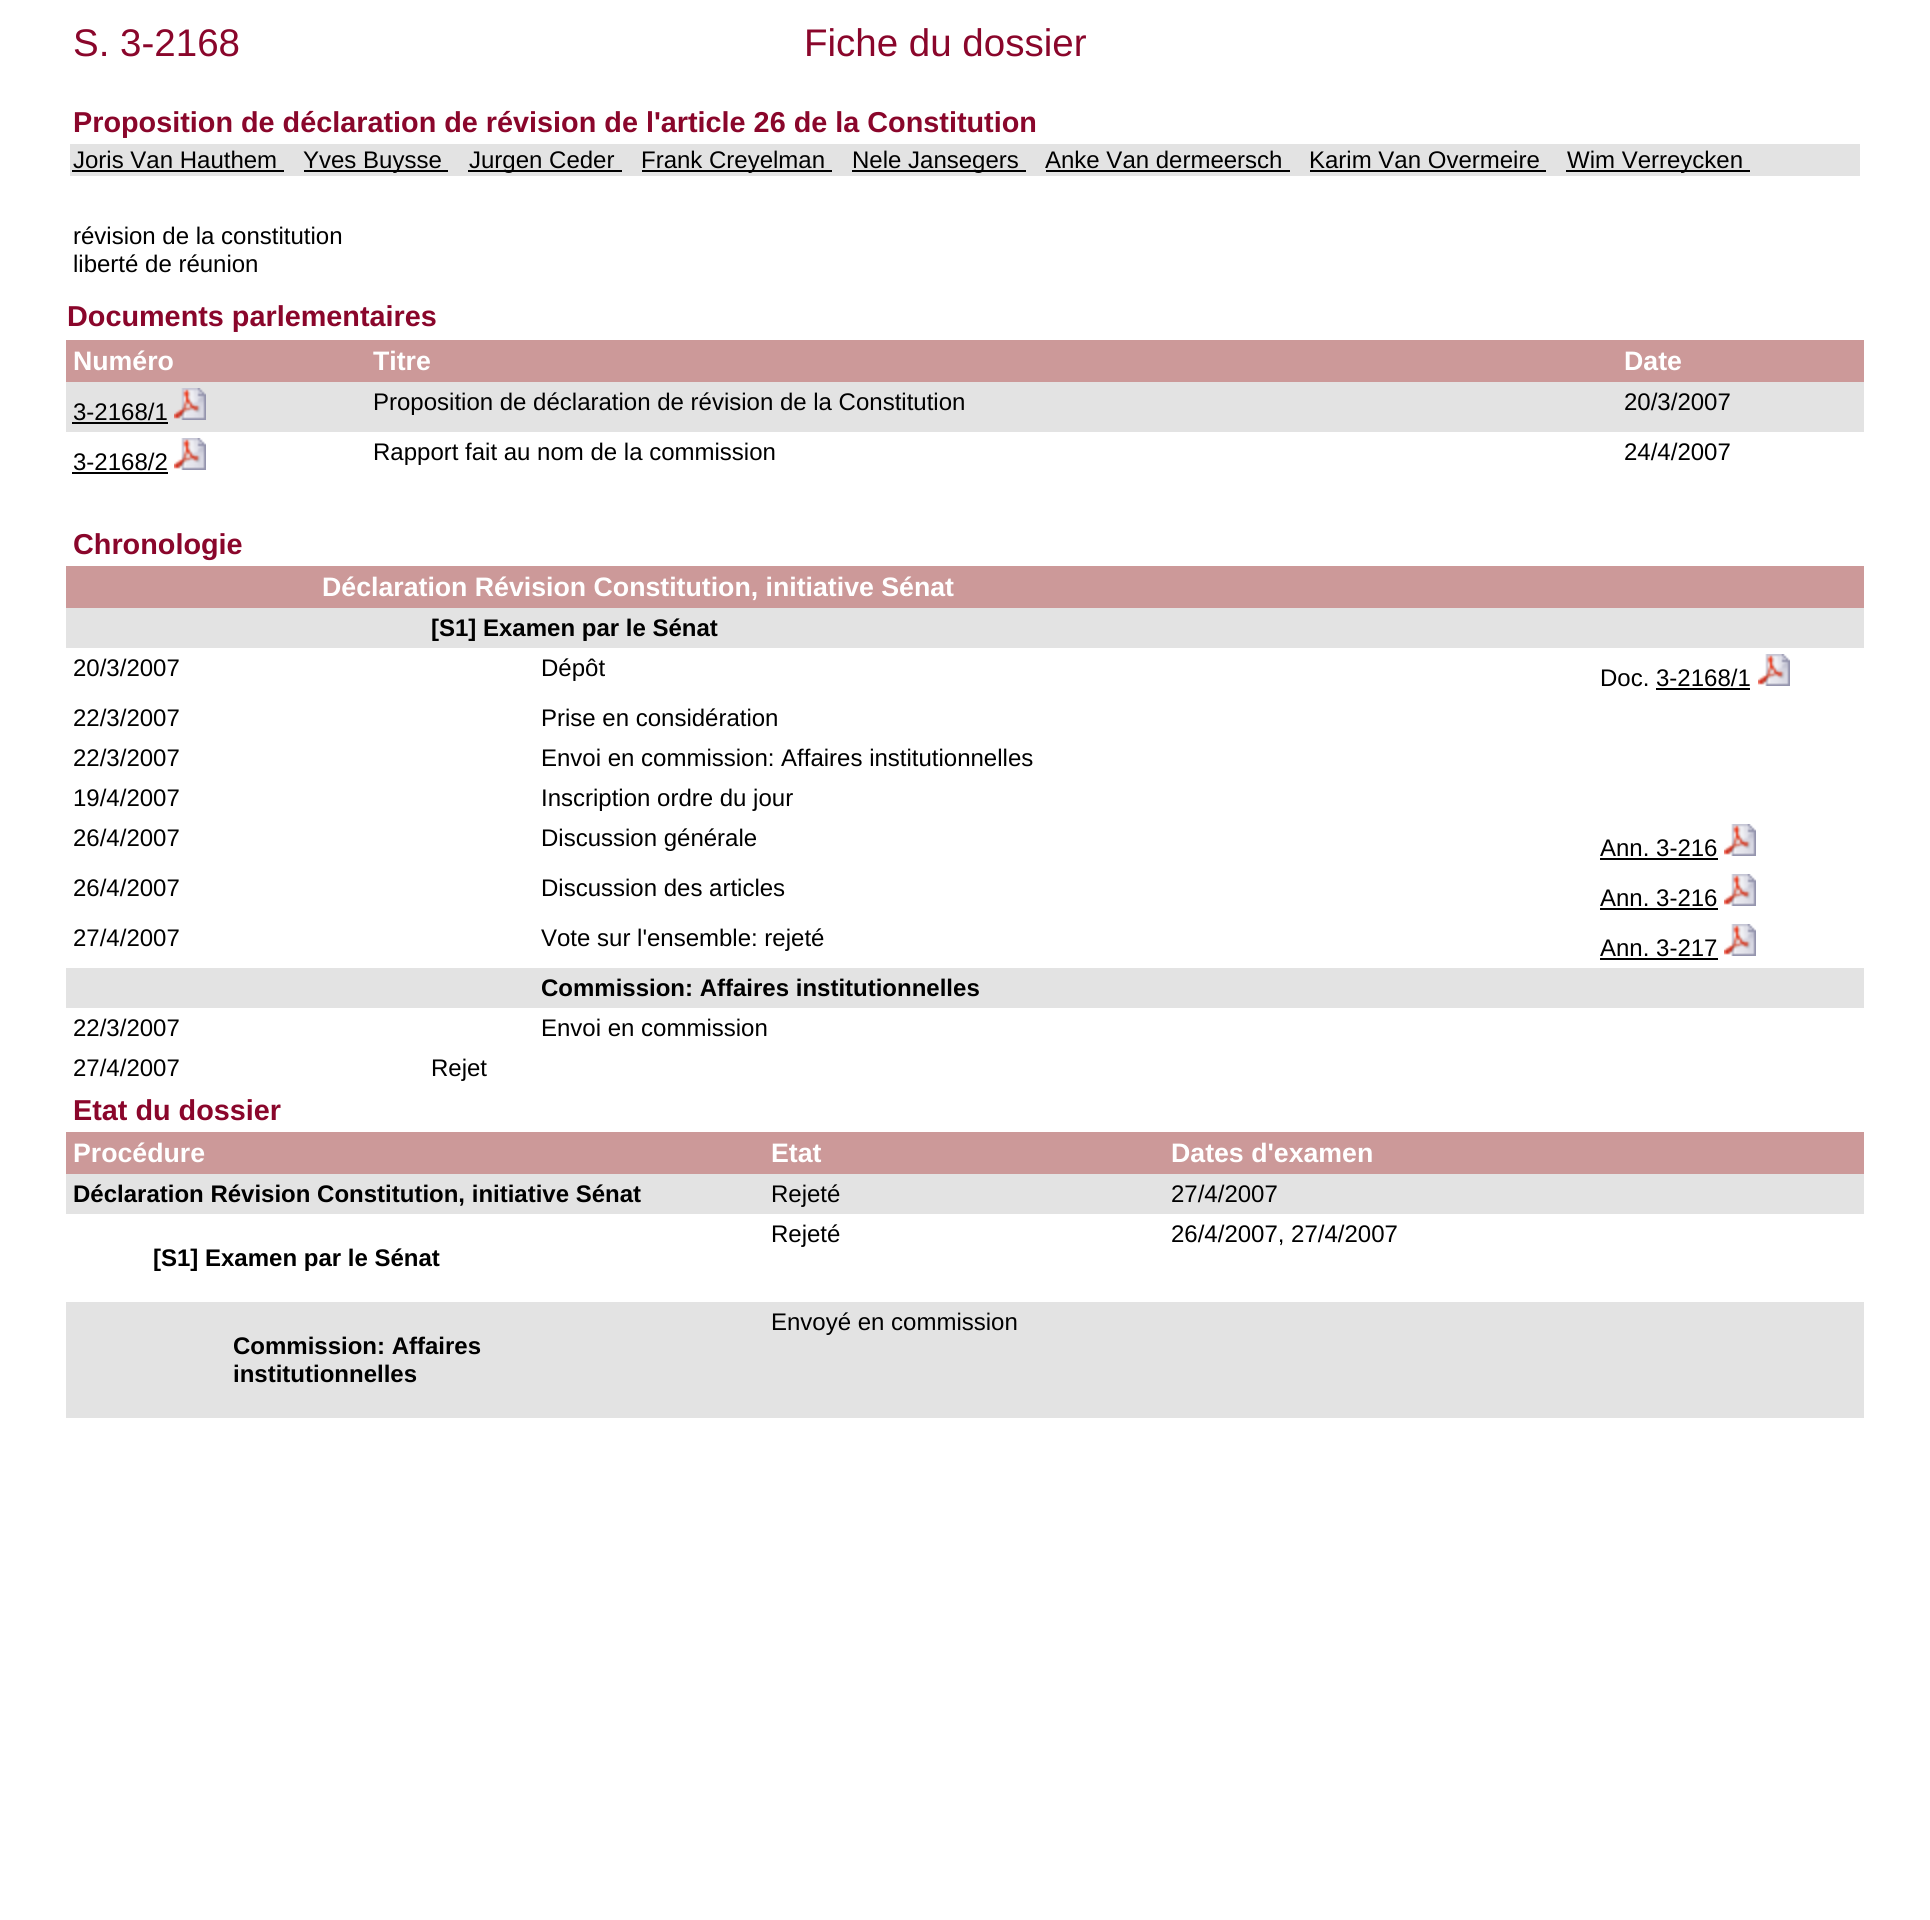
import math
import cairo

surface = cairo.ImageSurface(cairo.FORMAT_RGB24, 1930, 1920)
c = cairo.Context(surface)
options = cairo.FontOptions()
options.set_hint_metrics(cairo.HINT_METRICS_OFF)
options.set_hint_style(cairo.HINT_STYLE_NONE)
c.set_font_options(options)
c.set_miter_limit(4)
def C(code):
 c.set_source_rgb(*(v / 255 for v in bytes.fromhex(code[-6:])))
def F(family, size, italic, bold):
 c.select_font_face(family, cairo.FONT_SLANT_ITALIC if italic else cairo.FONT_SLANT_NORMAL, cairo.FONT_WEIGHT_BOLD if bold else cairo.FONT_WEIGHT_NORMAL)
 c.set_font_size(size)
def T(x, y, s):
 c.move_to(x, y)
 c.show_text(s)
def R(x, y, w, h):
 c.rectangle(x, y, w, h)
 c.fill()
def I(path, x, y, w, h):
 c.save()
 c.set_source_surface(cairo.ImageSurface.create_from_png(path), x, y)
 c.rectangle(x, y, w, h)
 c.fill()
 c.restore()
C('ffffff')
c.paint()
F('Liberation Sans',38.5,0,0)
C('8a062b')
T(73,56,'S. 3-2168')
T(804,56,'Fiche du dossier')
F('Liberation Sans',28.8,0,1)
T(73,132,'Proposition de déclaration de révision de l\'article 26 de la Constitution')
C('e3e3e3')
R(70,144,1790,32)
F('Liberation Sans',24,0,0)
C('000000')
T(73,168,'Joris Van Hauthem')
R(72,170,212,2)
R(304,170,144,2)
T(303,168,'Yves Buysse')
R(468,170,154,2)
T(469,168,'Jurgen Ceder')
R(642,170,190,2)
T(641,168,'Frank Creyelman')
R(852,170,174,2)
T(852,168,'Nele Jansegers')
T(1045,168,'Anke Van dermeersch')
R(1046,170,244,2)
T(1309,168,'Karim Van Overmeire')
R(1310,170,236,2)
R(1566,170,184,2)
T(1567,168,'Wim Verreycken')
T(73,244,'révision de la constitution')
T(73,272,'liberté de réunion')
F('Liberation Sans',28.8,0,1)
C('8a062b')
T(67,326,'Documents parlementaires')
C('cc9999')
R(66,340,1798,42)
F('Liberation Sans',26.7,0,1)
C('ffffff')
T(73,370,'Numéro')
T(373,370,'Titre')
T(1624,370,'Date')
C('e3e3e3')
R(66,382,1798,50)
F('Liberation Sans',24,0,0)
C('000000')
T(73,420,'3-2168/1')
R(72,422,96,2)
I('1.png',174,388,32,32)
T(373,410,'Proposition de déclaration de révision de la Constitution')
T(1624,410,'20/3/2007')
T(73,470,'3-2168/2')
R(72,472,96,2)
I('2.png',174,438,32,32)
T(373,460,'Rapport fait au nom de la commission')
T(1624,460,'24/4/2007')
F('Liberation Sans',28.8,0,1)
C('8a062b')
T(73,554,'Chronologie')
C('cc9999')
R(66,566,1798,42)
F('Liberation Sans',26.7,0,1)
C('ffffff')
T(322,596,'Déclaration Révision Constitution, initiative Sénat')
C('e3e3e3')
R(66,608,1798,40)
F('Liberation Sans',24,0,1)
C('000000')
T(431,636,'[S1] Examen par le Sénat')
F('Liberation Sans',24,0,0)
T(73,676,'20/3/2007')
T(541,676,'Dépôt')
T(1600,686,'Doc. 3-2168/1')
I('2.png',1758,654,32,32)
R(1656,688,94,2)
T(73,726,'22/3/2007')
T(541,726,'Prise en considération')
T(73,766,'22/3/2007')
T(541,766,'Envoi en commission: Affaires institutionnelles')
T(73,806,'19/4/2007')
T(541,806,'Inscription ordre du jour')
T(73,846,'26/4/2007')
T(541,846,'Discussion générale')
T(1600,856,'Ann. 3-216')
R(1600,858,118,2)
I('2.png',1724,824,32,32)
T(73,896,'26/4/2007')
T(541,896,'Discussion des articles')
T(1600,906,'Ann. 3-216')
R(1600,908,118,2)
I('2.png',1724,874,32,32)
T(73,946,'27/4/2007')
T(541,946,'Vote sur l\'ensemble: rejeté')
T(1600,956,'Ann. 3-217')
R(1600,958,118,2)
I('2.png',1724,924,32,32)
C('e3e3e3')
R(66,968,1798,40)
F('Liberation Sans',24,0,1)
C('000000')
T(541,996,'Commission: Affaires institutionnelles')
F('Liberation Sans',24,0,0)
T(73,1036,'22/3/2007')
T(541,1036,'Envoi en commission')
T(73,1076,'27/4/2007')
T(431,1076,'Rejet')
F('Liberation Sans',28.8,0,1)
C('8a062b')
T(73,1120,'Etat du dossier')
C('cc9999')
R(66,1132,1798,42)
F('Liberation Sans',26.7,0,1)
C('ffffff')
T(73,1162,'Procédure')
T(771,1162,'Etat')
T(1171,1162,'Dates d\'examen')
C('e3e3e3')
R(66,1174,1798,40)
F('Liberation Sans',24,0,1)
C('000000')
T(73,1202,'Déclaration Révision Constitution, initiative Sénat')
F('Liberation Sans',24,0,0)
T(771,1202,'Rejeté')
T(1171,1202,'27/4/2007')
T(771,1242,'Rejeté')
T(1171,1242,'26/4/2007, 27/4/2007')
F('Liberation Sans',24,0,1)
T(153,1266,'[S1] Examen par le Sénat')
C('e3e3e3')
R(66,1302,1798,116)
F('Liberation Sans',24,0,0)
C('000000')
T(771,1330,'Envoyé en commission')
F('Liberation Sans',24,0,1)
T(233,1354,'Commission: Affaires')
T(233,1382,'institutionnelles')
surface.write_to_png('o.png')
